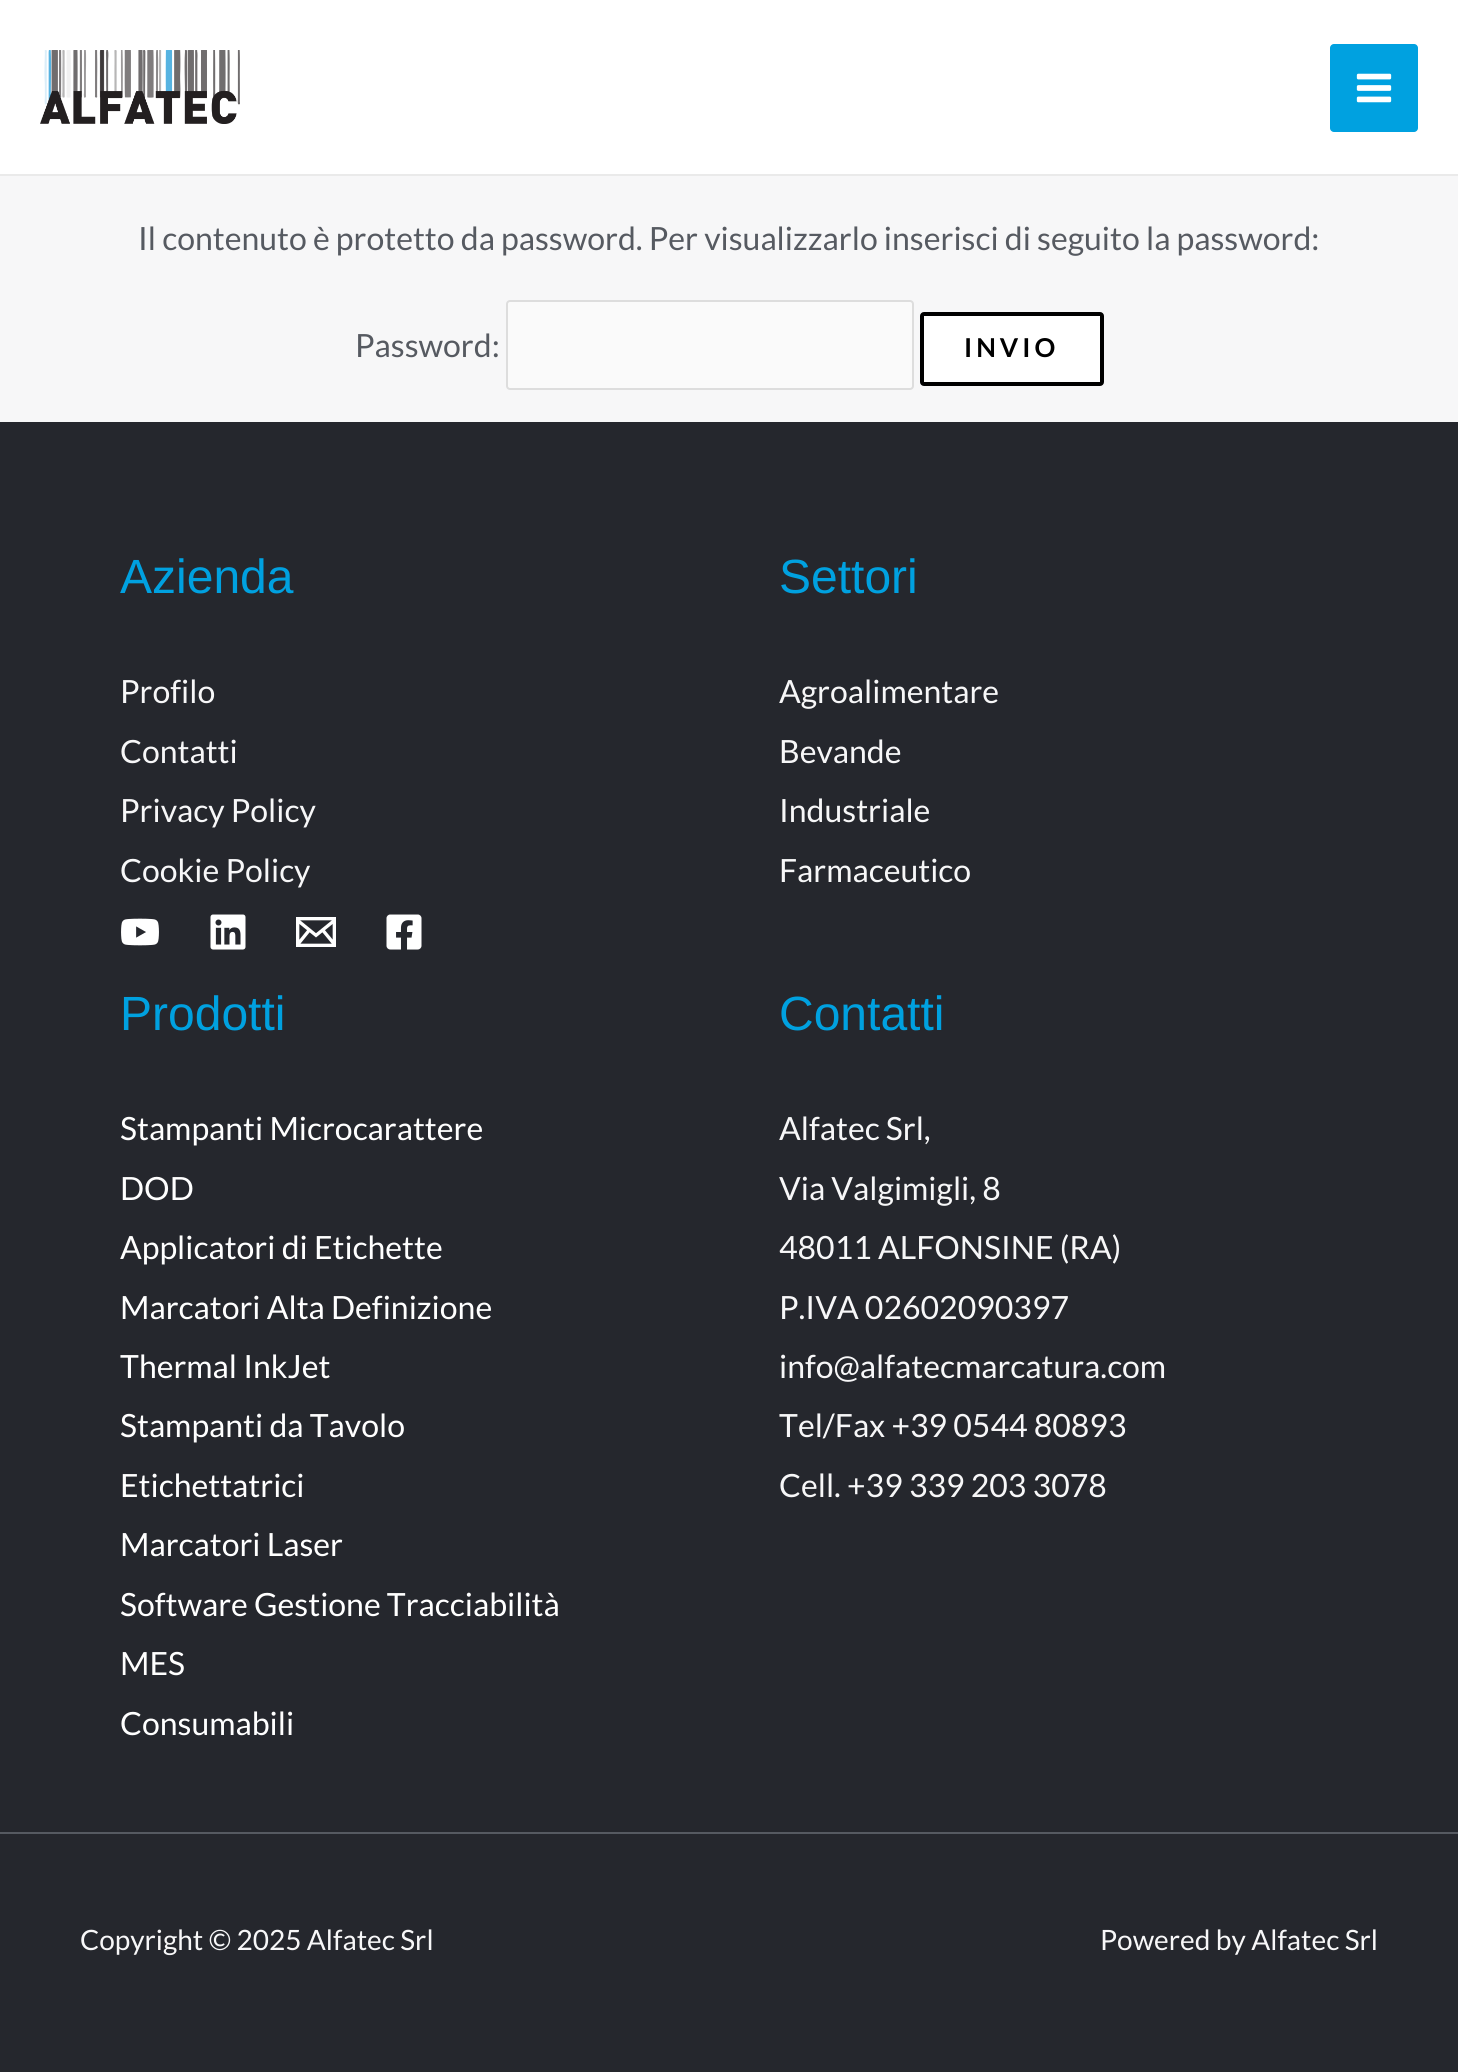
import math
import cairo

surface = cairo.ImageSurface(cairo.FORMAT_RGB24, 1458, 2072)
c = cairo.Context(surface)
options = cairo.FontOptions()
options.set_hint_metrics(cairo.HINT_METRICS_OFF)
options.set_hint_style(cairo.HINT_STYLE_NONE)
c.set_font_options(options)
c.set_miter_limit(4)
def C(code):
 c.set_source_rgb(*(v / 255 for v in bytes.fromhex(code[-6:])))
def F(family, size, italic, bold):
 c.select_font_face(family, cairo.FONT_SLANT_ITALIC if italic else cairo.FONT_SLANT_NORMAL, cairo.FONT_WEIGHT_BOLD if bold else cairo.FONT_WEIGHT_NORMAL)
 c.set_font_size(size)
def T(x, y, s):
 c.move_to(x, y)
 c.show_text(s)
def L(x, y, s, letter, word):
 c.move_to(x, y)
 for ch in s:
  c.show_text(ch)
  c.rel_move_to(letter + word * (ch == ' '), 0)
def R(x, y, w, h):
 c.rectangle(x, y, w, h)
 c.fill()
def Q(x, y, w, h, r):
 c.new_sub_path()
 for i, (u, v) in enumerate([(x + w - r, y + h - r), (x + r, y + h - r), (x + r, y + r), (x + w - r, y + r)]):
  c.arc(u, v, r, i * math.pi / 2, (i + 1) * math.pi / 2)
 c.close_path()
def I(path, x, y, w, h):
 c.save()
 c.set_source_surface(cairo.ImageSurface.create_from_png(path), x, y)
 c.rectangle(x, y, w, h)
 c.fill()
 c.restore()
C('f7f7f8')
c.paint()
C('ffffff')
R(0,0,1458,174)
C('eaeaea')
R(0,174,1458,2)
I('1.png',40,50,200,74)
C('00a1e0')
Q(1330,44,88,88,4)
c.fill()
I('2.png',1356,73,36,30)
F('Lato',32,0,0)
C('565a61')
T(138,250,'Il contenuto è protetto da password. Per visualizzarlo inserisci di seguito la password:')
T(355,357,'Password:')
C('fafafa')
Q(507,301,406,88,3)
c.fill_preserve()
C('dddddd')
c.stroke()
C('ffffff')
Q(922,314,180,70,2)
c.fill_preserve()
C('000000')
c.set_line_width(4)
c.stroke()
F('Lato',26,0,1)
L(964,357,'INVIO',4,0)
C('25272d')
R(0,422,1458,1650)
F('Liberation Sans',48,0,0)
C('00a1e0')
T(120,593,'Azienda')
F('Lato',32,0,0)
C('f7f7f8')
T(120,703,'Profilo')
T(120,763,'Contatti')
T(120,822,'Privacy Policy')
T(120,882,'Cookie Policy')
I('3.png',121,918,38,28)
I('4.png',210,914,36,36)
I('5.png',296,917,40,30)
I('6.png',386,914,36,36)
F('Liberation Sans',48,0,0)
C('00a1e0')
T(779,593,'Settori')
F('Lato',32,0,0)
C('f7f7f8')
T(779,703,'Agroalimentare')
T(779,763,'Bevande')
T(779,822,'Industriale')
T(779,882,'Farmaceutico')
F('Liberation Sans',48,0,0)
C('00a1e0')
T(120,1030,'Prodotti')
F('Lato',32,0,0)
C('ffffff')
T(120,1140,'Stampanti Microcarattere')
T(120,1200,'DOD')
T(120,1259,'Applicatori di Etichette')
T(120,1319,'Marcatori Alta Definizione')
T(120,1378,'Thermal InkJet')
T(120,1437,'Stampanti da Tavolo')
T(120,1497,'Etichettatrici')
T(120,1556,'Marcatori Laser')
T(120,1616,'Software Gestione Tracciabilità')
T(120,1675,'MES')
T(120,1735,'Consumabili')
F('Liberation Sans',48,0,0)
C('00a1e0')
T(779,1030,'Contatti')
F('Lato',32,0,0)
C('f7f7f8')
T(779,1140,'Alfatec Srl,')
T(779,1200,'Via Valgimigli, 8')
T(779,1259,'48011 ALFONSINE (RA)')
T(779,1319,'P.IVA 02602090397')
T(779,1378,'info@alfatecmarcatura.com')
T(779,1437,'Tel/Fax +39 0544 80893')
T(779,1497,'Cell. +39 339 203 3078')
C('565a61')
R(0,1832,1458,2)
F('Lato',28,0,0)
C('f7f7f8')
T(80,1950,'Copyright © 2025 Alfatec Srl')
T(1100,1950,'Powered by Alfatec Srl')
surface.write_to_png('o.png')
